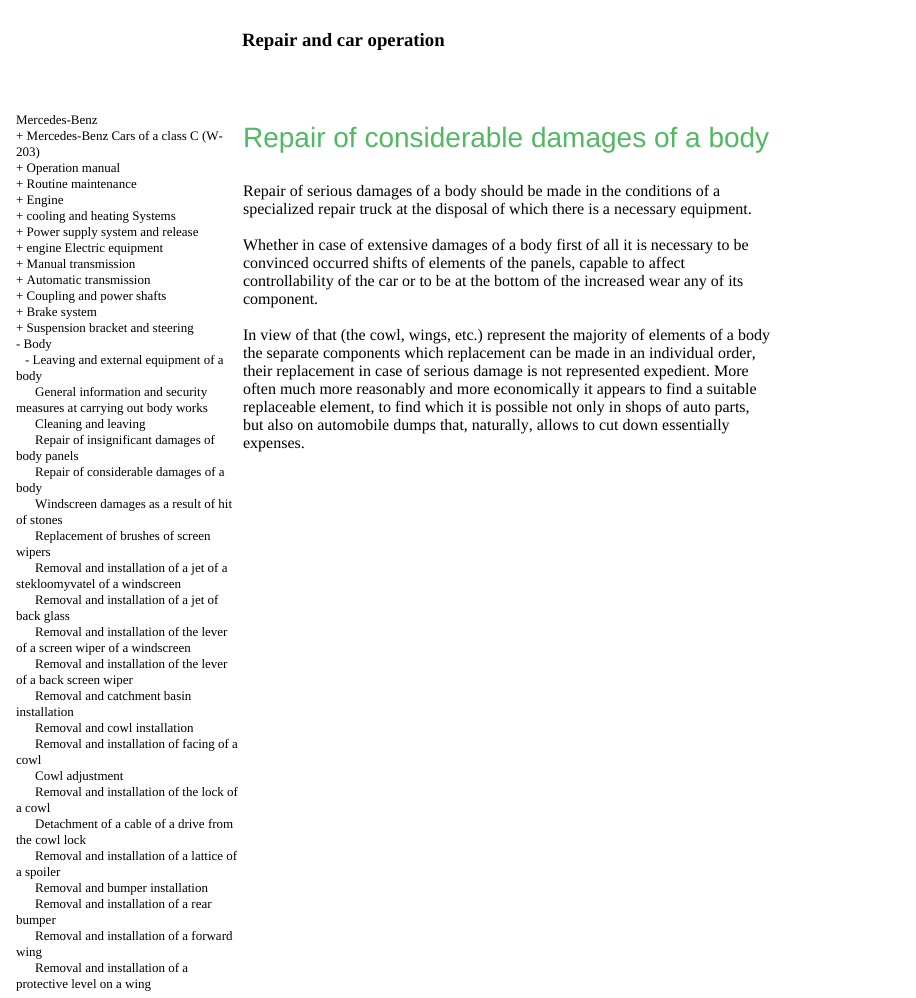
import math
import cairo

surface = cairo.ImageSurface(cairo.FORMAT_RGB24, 916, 998)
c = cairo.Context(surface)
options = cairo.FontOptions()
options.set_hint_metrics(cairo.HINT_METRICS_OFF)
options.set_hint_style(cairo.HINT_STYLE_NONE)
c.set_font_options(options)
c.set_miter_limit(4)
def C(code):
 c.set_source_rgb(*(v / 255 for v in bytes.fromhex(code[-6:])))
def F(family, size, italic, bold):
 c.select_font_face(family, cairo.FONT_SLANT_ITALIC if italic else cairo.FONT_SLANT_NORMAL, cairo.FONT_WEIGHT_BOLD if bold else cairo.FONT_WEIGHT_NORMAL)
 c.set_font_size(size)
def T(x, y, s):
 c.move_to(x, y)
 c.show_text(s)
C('ffffff')
c.paint()
F('Liberation Serif',18.75,0,1)
C('000000')
T(242,46,'Repair and car operation')
F('Liberation Serif',13,0,0)
T(16,124,'Mercedes-Benz')
T(16,140,'+ Mercedes-Benz Cars of a class C (W-')
T(16,156,'203)')
T(16,172,'+ Operation manual')
T(16,188,'+ Routine maintenance')
T(16,204,'+ Engine')
T(16,220,'+ cooling and heating Systems')
T(16,236,'+ Power supply system and release')
T(16,252,'+ engine Electric equipment')
T(16,268,'+ Manual transmission')
T(16,284,'+ Automatic transmission')
T(16,300,'+ Coupling and power shafts')
T(16,316,'+ Brake system')
T(16,332,'+ Suspension bracket and steering')
T(16,348,'- Body')
T(25,364,'- Leaving and external equipment of a')
T(16,380,'body')
T(35,396,'General information and security')
T(16,412,'measures at carrying out body works')
T(35,428,'Cleaning and leaving')
T(35,444,'Repair of insignificant damages of')
T(16,460,'body panels')
T(35,476,'Repair of considerable damages of a')
T(16,492,'body')
T(35,508,'Windscreen damages as a result of hit')
T(16,524,'of stones')
T(35,540,'Replacement of brushes of screen')
T(16,556,'wipers')
T(35,572,'Removal and installation of a jet of a')
T(16,588,'stekloomyvatel of a windscreen')
T(35,604,'Removal and installation of a jet of')
T(16,620,'back glass')
T(35,636,'Removal and installation of the lever')
T(16,652,'of a screen wiper of a windscreen')
T(35,668,'Removal and installation of the lever')
T(16,684,'of a back screen wiper')
T(35,700,'Removal and catchment basin')
T(16,716,'installation')
T(35,732,'Removal and cowl installation')
T(35,748,'Removal and installation of facing of a')
T(16,764,'cowl')
T(35,780,'Cowl adjustment')
T(35,796,'Removal and installation of the lock of')
T(16,812,'a cowl')
T(35,828,'Detachment of a cable of a drive from')
T(16,844,'the cowl lock')
T(35,860,'Removal and installation of a lattice of')
T(16,876,'a spoiler')
T(35,892,'Removal and bumper installation')
T(35,908,'Removal and installation of a rear')
T(16,924,'bumper')
T(35,940,'Removal and installation of a forward')
T(16,956,'wing')
T(35,972,'Removal and installation of a')
T(16,988,'protective level on a wing')
F('Liberation Sans',28,0,0)
C('51b963')
T(243,147,'Repair of considerable damages of a body')
F('Liberation Serif',16,0,0)
C('000000')
T(243,196,'Repair of serious damages of a body should be made in the conditions of a')
T(243,214,'specialized repair truck at the disposal of which there is a necessary equipment.')
T(243,250,'Whether in case of extensive damages of a body first of all it is necessary to be')
T(243,268,'convinced occurred shifts of elements of the panels, capable to affect')
T(243,286,'controllability of the car or to be at the bottom of the increased wear any of its')
T(243,304,'component.')
T(243,340,'In view of that (the cowl, wings, etc.) represent the majority of elements of a body')
T(243,358,'the separate components which replacement can be made in an individual order,')
T(243,376,'their replacement in case of serious damage is not represented expedient. More')
T(243,394,'often much more reasonably and more economically it appears to find a suitable')
T(243,412,'replaceable element, to find which it is possible not only in shops of auto parts,')
T(243,430,'but also on automobile dumps that, naturally, allows to cut down essentially')
T(243,448,'expenses.')
surface.write_to_png('o.png')
